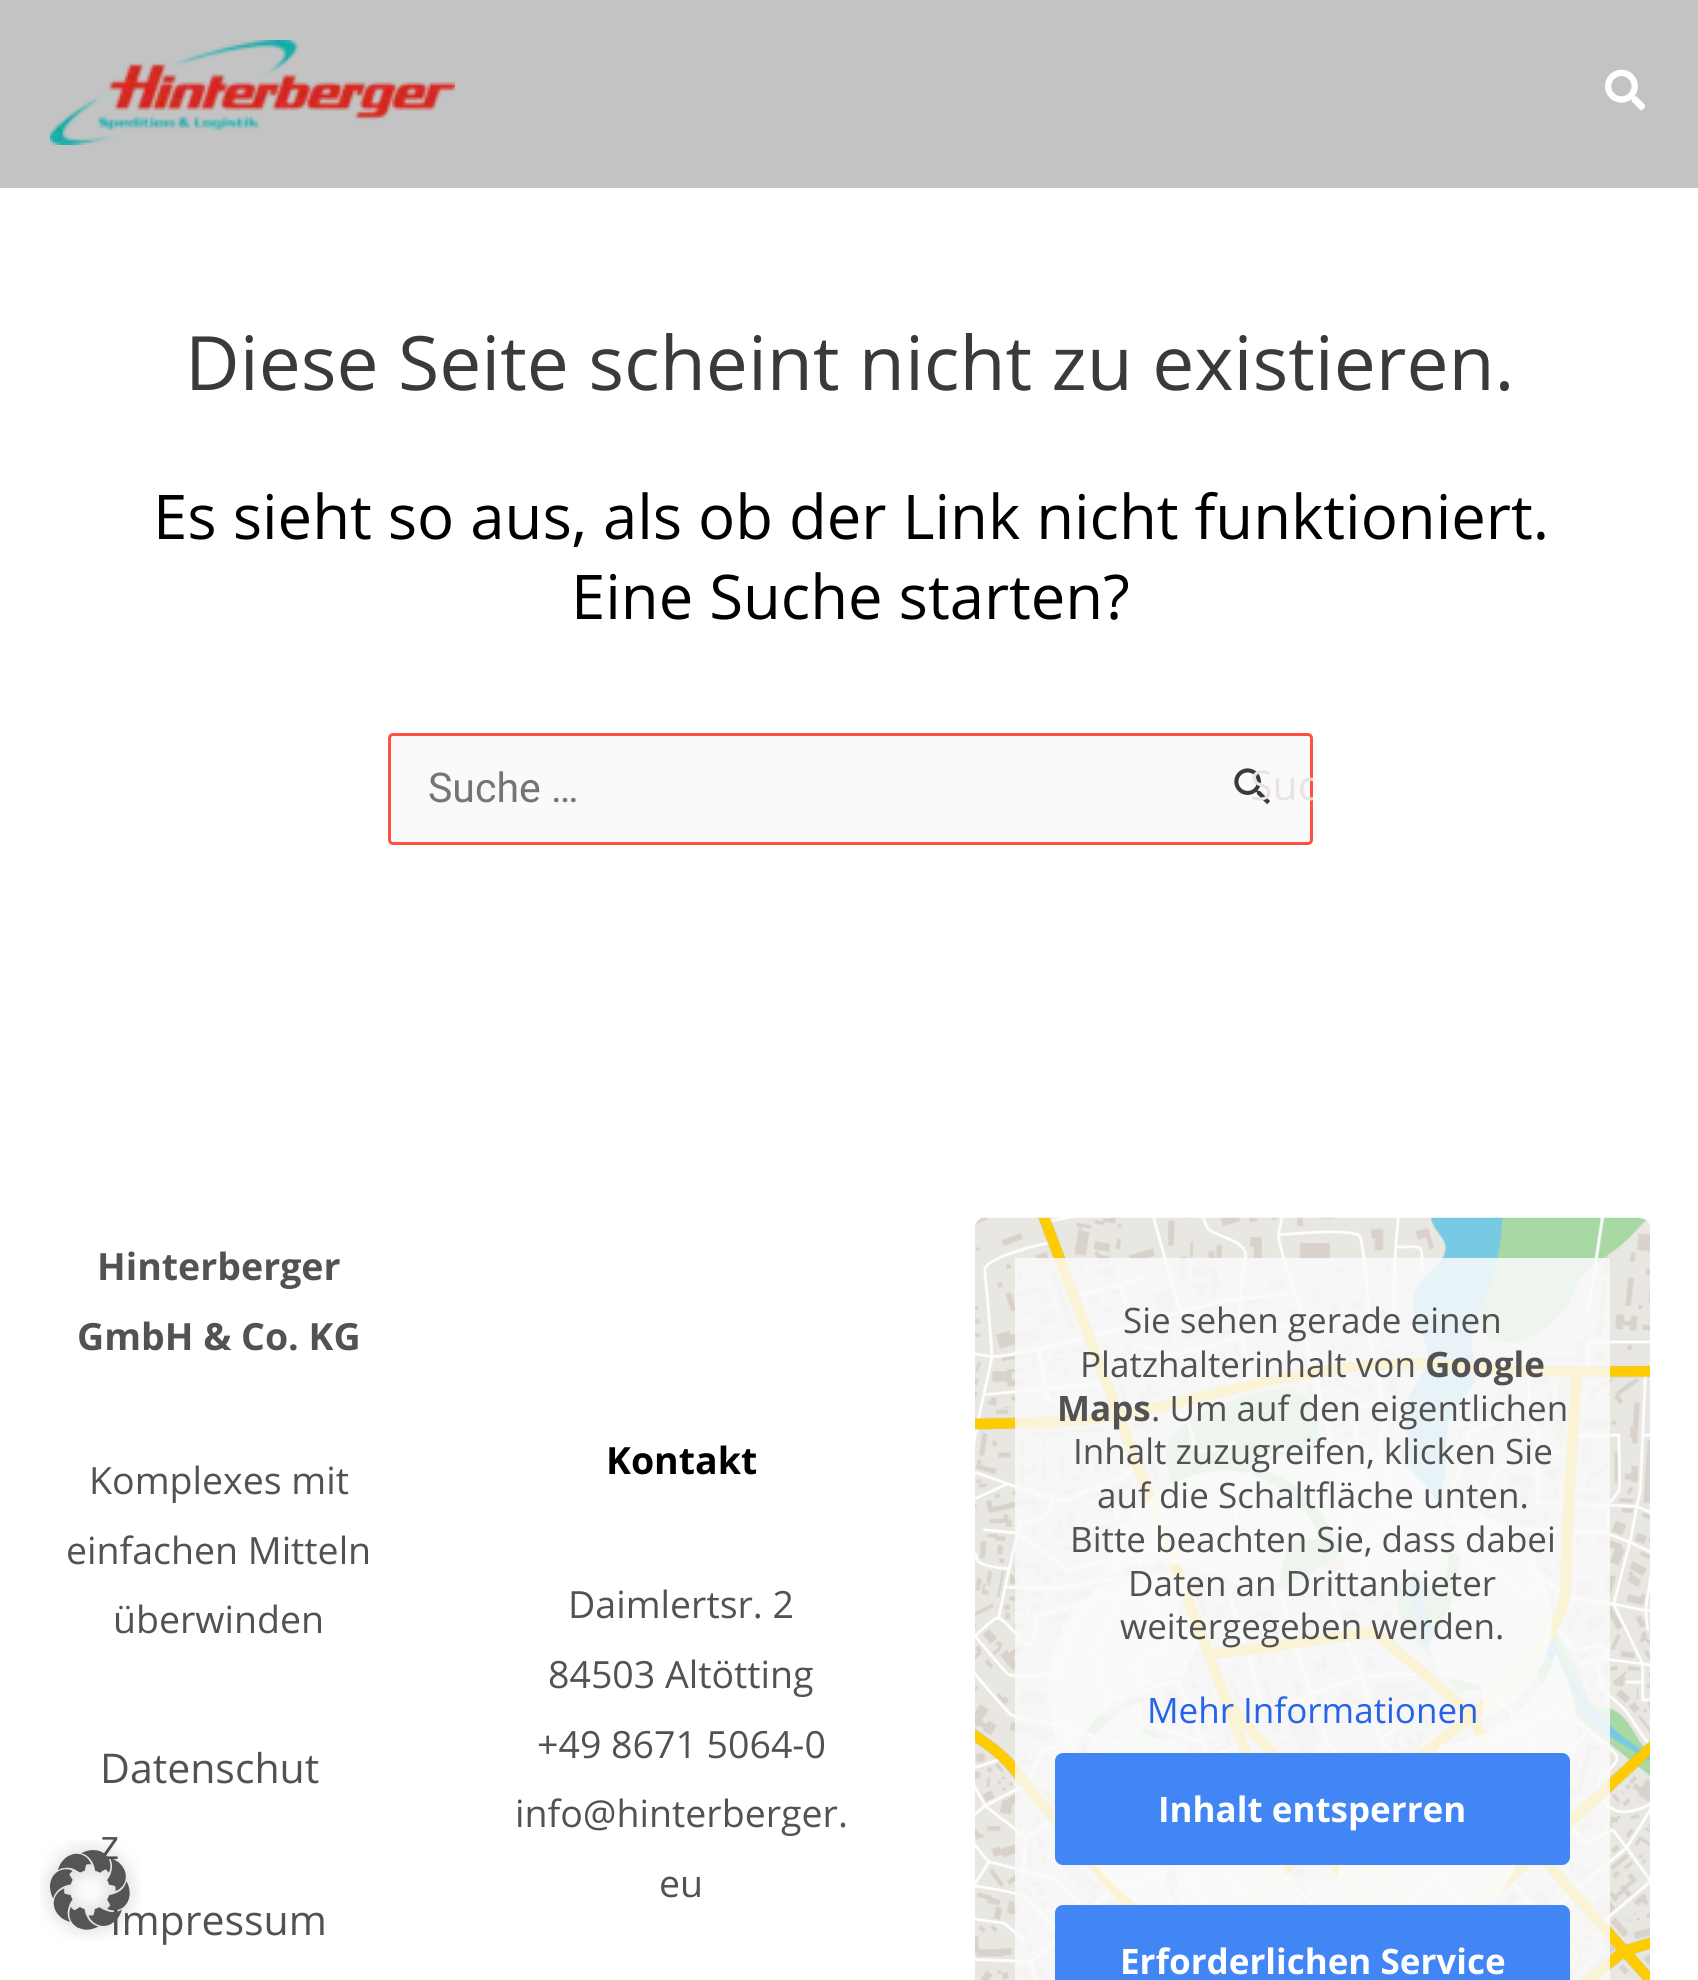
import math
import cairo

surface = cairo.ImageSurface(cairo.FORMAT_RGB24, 1698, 1980)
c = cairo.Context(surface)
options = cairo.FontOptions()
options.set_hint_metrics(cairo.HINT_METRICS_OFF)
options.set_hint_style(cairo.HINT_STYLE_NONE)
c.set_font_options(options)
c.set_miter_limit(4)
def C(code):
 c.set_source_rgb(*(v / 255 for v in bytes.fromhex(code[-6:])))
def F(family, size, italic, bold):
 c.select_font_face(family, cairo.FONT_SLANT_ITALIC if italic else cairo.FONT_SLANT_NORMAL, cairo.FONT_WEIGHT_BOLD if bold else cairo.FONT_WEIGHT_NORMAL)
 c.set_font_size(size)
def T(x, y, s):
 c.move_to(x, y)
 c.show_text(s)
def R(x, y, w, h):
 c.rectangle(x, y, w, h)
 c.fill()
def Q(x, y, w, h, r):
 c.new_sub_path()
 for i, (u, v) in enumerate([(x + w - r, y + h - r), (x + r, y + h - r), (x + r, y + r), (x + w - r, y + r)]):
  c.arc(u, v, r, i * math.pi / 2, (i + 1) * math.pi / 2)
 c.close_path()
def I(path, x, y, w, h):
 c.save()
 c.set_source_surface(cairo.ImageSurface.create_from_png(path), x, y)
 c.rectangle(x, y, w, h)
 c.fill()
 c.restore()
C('ffffff')
c.paint()
C('c3c3c3')
R(0,0,1698,188)
I('1.png',50,40,405,105)
I('2.png',1605,69,40,42)
F('Open Sans',75,0,0)
C('3a3a3a')
T(185,390,'Diese Seite scheint nicht zu existieren.')
F('Open Sans',61.6,0,0)
C('000000')
T(153,539,'Es sieht so aus, als ob der Link nicht funktioniert.')
T(571,619,'Eine Suche starten?')
C('fafafa')
Q(389.5,734.5,922,109,3.5)
c.fill_preserve()
C('ff5042')
c.set_line_width(3)
c.stroke()
F('Roboto',41,0,0)
C('757575')
T(428,802,'Suche …')
I('3.png',1234,768,36,37)
c.save()
Q(1200,733,113,105,5)
c.clip()
F('Open Sans',41,0,0)
C('e9e3e2')
T(1250,800,'Suc')
c.restore()
F('Open Sans',37.5,0,1)
C('525252')
T(97,1280,'Hinterberger')
T(77,1350,'GmbH & Co. KG')
F('Open Sans',37.5,0,0)
T(89,1494,'Komplexes mit')
T(66,1564,'einfachen Mitteln')
T(113,1633,'überwinden')
F('Open Sans',41,0,0)
T(100,1783,'Datenschut')
T(100,1859,'z')
T(110,1935,'Impressum')
F('Open Sans',37.5,0,1)
C('000000')
T(606,1474,'Kontakt')
F('Open Sans',37.5,0,0)
C('525252')
T(568,1618,'Daimlertsr. 2')
T(548,1688,'84503 Altötting')
T(537,1758,'+49 8671 5064-0')
T(515,1827,'info@hinterberger.')
T(659,1897,'eu')
I('4.png',975,1217,675,763)
c.set_source_rgba(0.98,0.98,0.98,0.85)
R(1015,1258,595,722)
F('Open Sans',35,0,0)
C('525252')
T(1123,1333,'Sie sehen gerade einen')
T(1080,1377,'Platzhalterinhalt von')
F('Open Sans',35,0,1)
T(1425,1377,'Google')
T(1057,1421,'Maps')
F('Open Sans',35,0,0)
T(1151,1421,'. Um auf den eigentlichen')
T(1073,1464,'Inhalt zuzugreifen, klicken Sie')
T(1097,1508,'auf die Schaltfläche unten.')
T(1070,1552,'Bitte beachten Sie, dass dabei')
T(1128,1596,'Daten an Drittanbieter')
T(1120,1639,'weitergegeben werden.')
C('2563eb')
T(1147,1723,'Mehr Informationen')
C('4285f4')
Q(1055,1753,515,112,8)
c.fill()
F('Open Sans',35,0,1)
C('ffffff')
T(1158,1822,'Inhalt entsperren')
C('4285f4')
Q(1055,1905,515,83,8)
c.fill()
C('ffffff')
T(1120,1974,'Erforderlichen Service')
I('5.png',40,1840,100,100)
surface.write_to_png('o.png')
